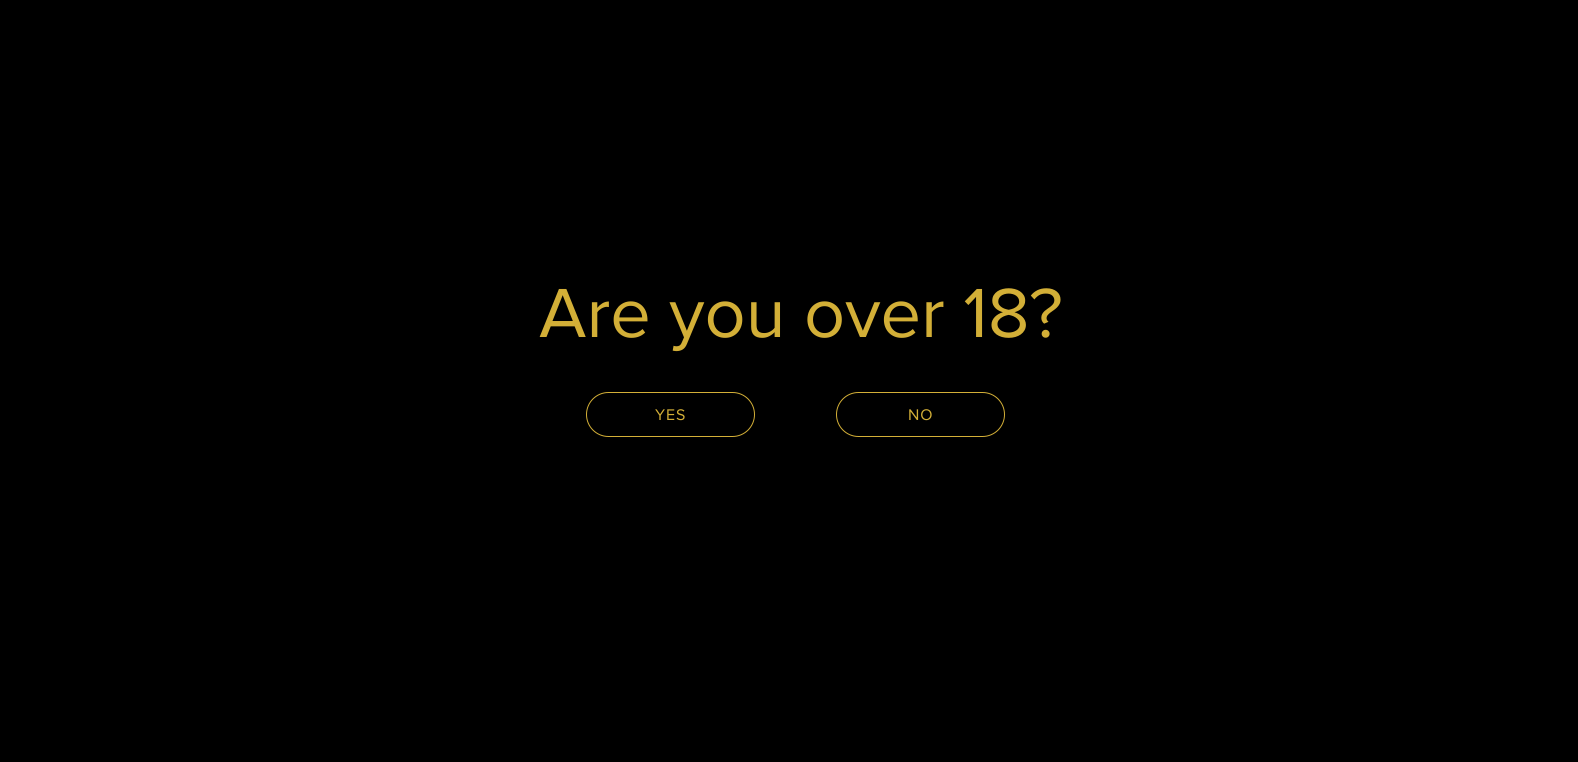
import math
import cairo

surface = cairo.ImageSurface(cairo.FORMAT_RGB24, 1578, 762)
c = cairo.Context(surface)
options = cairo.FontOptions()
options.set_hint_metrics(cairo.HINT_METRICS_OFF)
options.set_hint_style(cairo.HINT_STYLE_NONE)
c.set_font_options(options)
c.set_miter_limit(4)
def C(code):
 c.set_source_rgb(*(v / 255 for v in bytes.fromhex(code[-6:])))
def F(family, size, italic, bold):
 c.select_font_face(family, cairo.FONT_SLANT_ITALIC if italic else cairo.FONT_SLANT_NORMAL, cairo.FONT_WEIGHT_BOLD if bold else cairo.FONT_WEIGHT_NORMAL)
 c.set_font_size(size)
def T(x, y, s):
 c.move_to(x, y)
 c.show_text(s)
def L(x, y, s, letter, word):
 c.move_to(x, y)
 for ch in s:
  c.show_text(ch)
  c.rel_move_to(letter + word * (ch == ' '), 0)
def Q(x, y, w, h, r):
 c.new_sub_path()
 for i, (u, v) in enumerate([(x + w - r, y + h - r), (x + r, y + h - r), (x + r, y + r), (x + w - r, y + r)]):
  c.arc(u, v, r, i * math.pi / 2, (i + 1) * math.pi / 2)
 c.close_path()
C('000000')
c.paint()
F('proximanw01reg',72,0,0)
C('d3af37')
T(539,337,'Are you over 18?')
Q(586.5,392.5,168,44,22)
c.set_line_width(1)
c.stroke()
F('proximanw01reg',16,0,0)
L(655,420,'YES',1,0)
Q(836.5,392.5,168,44,22)
c.stroke()
L(908,420,'NO',1,0)
surface.write_to_png('o.png')
